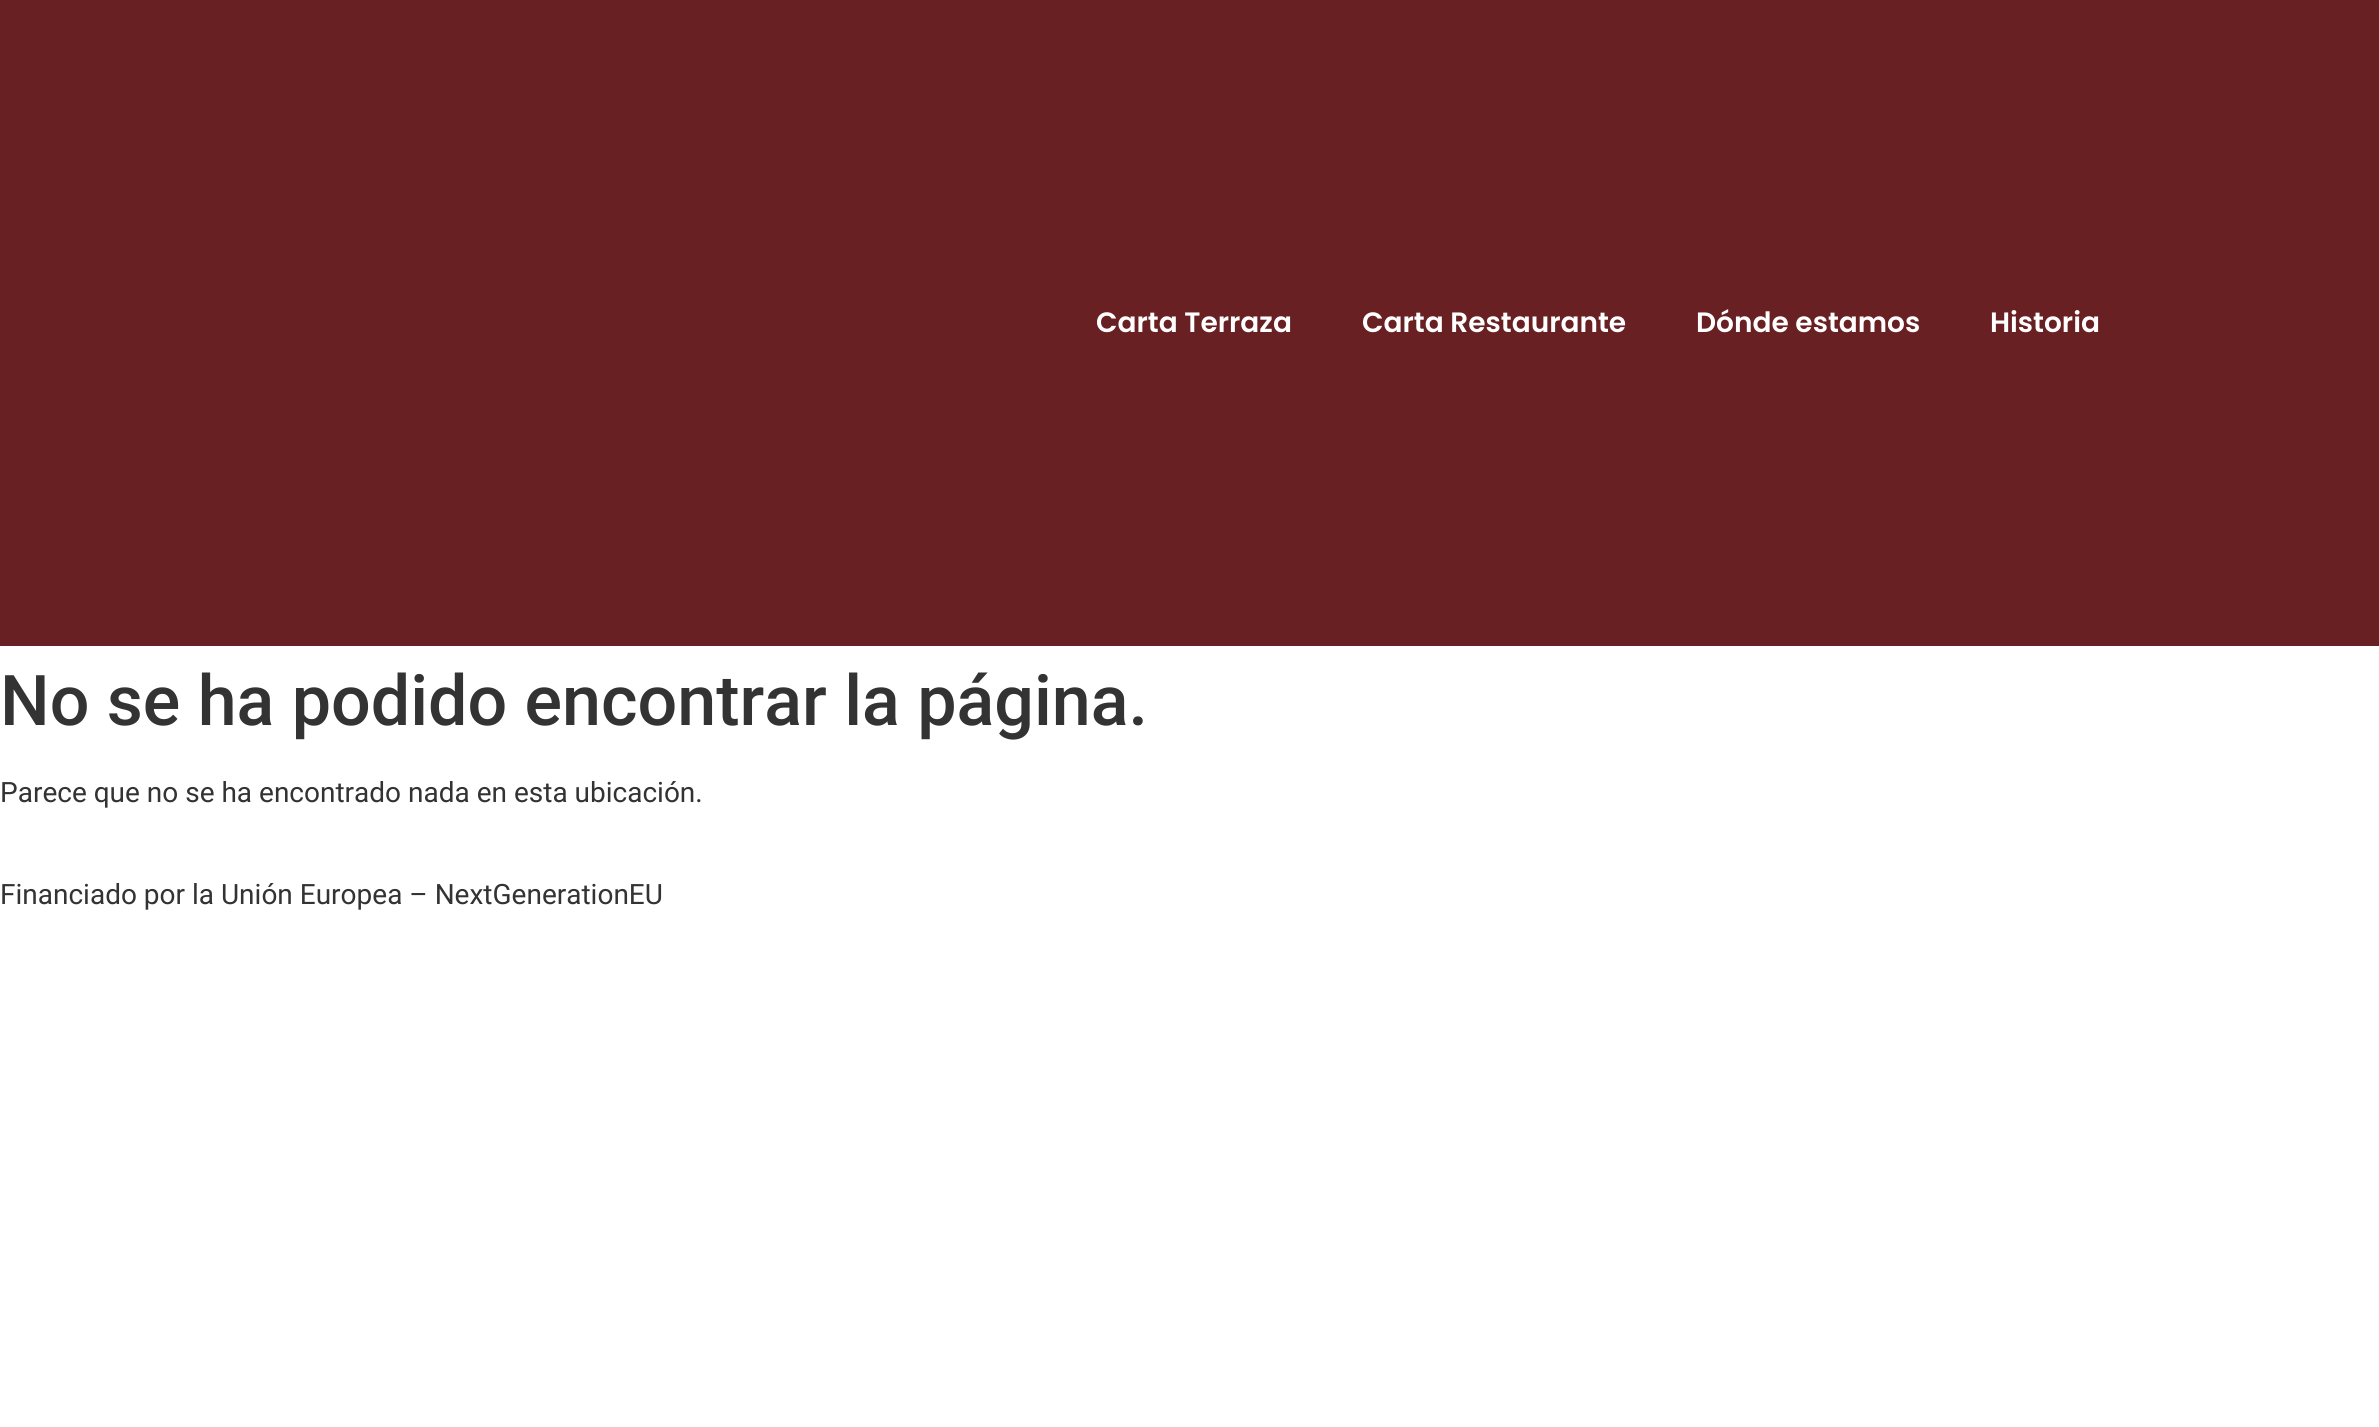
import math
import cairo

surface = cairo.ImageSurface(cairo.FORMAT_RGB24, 2379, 1427)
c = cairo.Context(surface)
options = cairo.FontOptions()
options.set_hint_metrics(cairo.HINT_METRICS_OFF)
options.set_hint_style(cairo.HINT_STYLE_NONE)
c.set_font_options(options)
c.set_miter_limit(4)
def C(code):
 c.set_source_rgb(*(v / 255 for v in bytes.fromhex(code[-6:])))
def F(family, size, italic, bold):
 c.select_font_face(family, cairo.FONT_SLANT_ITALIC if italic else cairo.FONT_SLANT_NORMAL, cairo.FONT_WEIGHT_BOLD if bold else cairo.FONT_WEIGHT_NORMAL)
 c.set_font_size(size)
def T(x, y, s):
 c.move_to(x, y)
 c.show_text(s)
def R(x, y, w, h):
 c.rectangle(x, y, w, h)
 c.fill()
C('ffffff')
c.paint()
C('682023')
R(0,0,2379,646)
F('Poppins SemiBold',28,0,0)
C('ffffff')
T(1096,332,'Carta Terraza')
T(1362,332,'Carta Restaurante')
T(1696,332,'Dónde estamos')
T(1990,332,'Historia')
F('Roboto Medium',70,0,0)
C('333333')
T(0,725,'No se ha podido encontrar la página.')
F('Roboto',28,0,0)
T(0,802,'Parece que no se ha encontrado nada en esta ubicación.')
T(0,904,'Financiado por la Unión Europea – NextGenerationEU')
surface.write_to_png('o.png')
